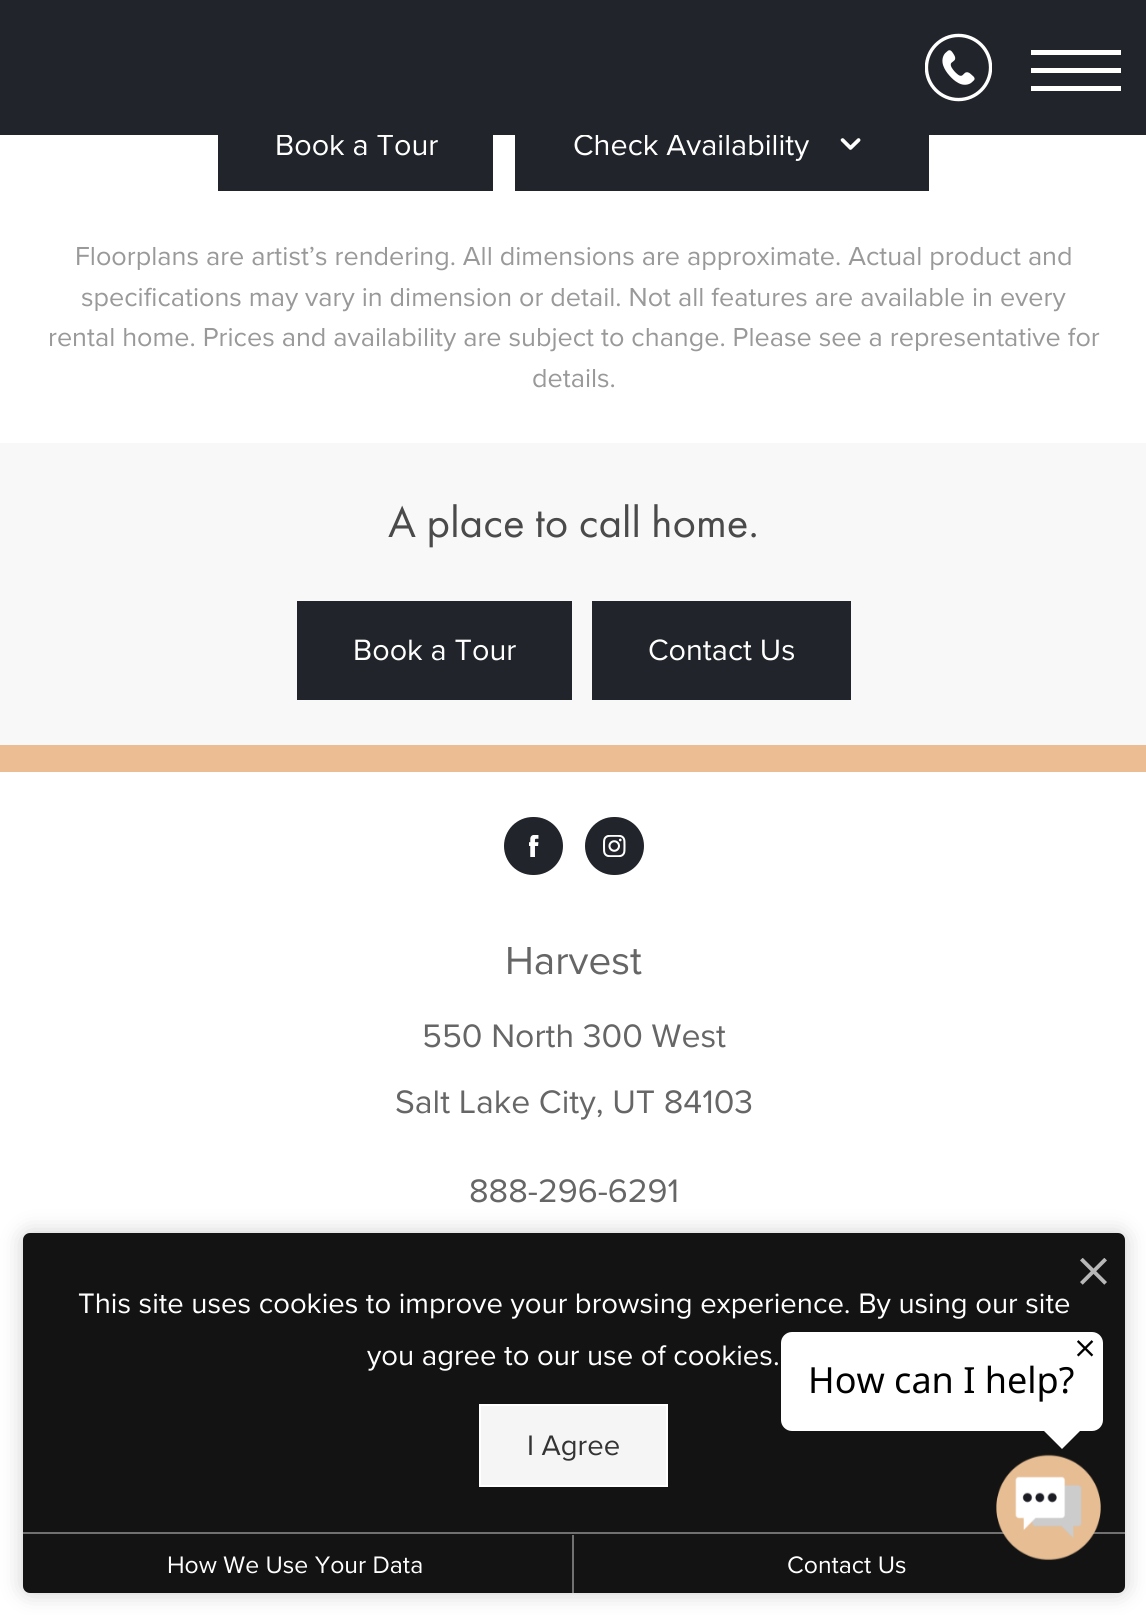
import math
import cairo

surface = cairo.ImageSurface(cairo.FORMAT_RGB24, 1146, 1615)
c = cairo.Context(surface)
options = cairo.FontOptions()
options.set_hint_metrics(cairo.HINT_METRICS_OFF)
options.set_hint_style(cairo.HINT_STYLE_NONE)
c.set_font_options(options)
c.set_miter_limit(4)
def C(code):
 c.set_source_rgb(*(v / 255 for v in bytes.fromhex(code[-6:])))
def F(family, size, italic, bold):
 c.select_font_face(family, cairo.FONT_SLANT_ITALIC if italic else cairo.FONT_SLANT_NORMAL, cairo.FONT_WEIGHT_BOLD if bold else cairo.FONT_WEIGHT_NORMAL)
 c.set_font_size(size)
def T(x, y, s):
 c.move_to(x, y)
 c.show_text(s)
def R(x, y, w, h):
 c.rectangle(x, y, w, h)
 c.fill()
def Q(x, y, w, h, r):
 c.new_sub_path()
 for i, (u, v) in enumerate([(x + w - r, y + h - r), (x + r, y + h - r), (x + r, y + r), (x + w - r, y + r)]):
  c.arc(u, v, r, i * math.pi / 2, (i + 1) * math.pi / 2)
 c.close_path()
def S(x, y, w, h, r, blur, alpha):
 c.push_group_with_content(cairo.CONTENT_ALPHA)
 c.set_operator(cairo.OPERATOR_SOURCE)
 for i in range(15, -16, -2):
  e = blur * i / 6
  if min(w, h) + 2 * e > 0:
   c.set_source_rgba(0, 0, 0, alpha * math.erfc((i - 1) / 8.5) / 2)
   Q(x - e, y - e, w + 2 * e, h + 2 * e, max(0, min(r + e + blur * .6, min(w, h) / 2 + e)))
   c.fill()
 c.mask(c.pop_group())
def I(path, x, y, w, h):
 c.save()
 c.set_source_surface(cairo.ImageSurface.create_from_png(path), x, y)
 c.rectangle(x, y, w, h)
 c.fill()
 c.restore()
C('ffffff')
c.paint()
C('21252b')
R(218,135,275,56)
F('Proxima Nova',30.5,0,0)
C('ffffff')
T(275,155,'Book a Tour')
C('21252b')
R(515,135,414,56)
C('ffffff')
T(573,155,'Check Availability')
C('21252b')
R(0,0,1146,135)
I('1.png',925,33,67,69)
C('ffffff')
R(1031,50,90,5)
R(1031,68,90,5)
R(1031,86,90,5)
I('2.png',840,138,21,12)
F('Proxima Nova',27,0,0)
C('999999')
T(75,265,'Floorplans are artist’s rendering. All dimensions are approximate. Actual product and')
T(81,306,'specifications may vary in dimension or detail. Not all features are available in every')
T(48,346,'rental home. Prices and availability are subject to change. Please see a representative for')
T(532,387,'details.')
C('f8f8f8')
R(0,443,1146,302)
F('Futura PT',45,0,0)
C('4a4a4a')
T(388,537,'A place to call home.')
C('21252b')
R(297,601,275,99)
F('Proxima Nova',30.5,0,0)
C('ffffff')
T(353,660,'Book a Tour')
C('21252b')
R(592,601,259,99)
C('ffffff')
T(648,660,'Contact Us')
C('ecbd92')
R(0,745,1146,27)
C('21252b')
Q(504,817,59,58,29)
c.fill()
I('3.png',529,835,10,22)
Q(585,817,59,58,29)
c.fill()
I('4.png',603,835,23,22)
F('Proxima Nova',40.5,0,0)
C('666666')
T(505,974,'Harvest')
F('Proxima Nova',33.75,0,0)
T(422,1047,'550 North 300 West')
T(395,1113,'Salt Lake City, UT 84103')
T(469,1202,'888-296-6291')
C('000000')
S(23,1233,1102,360,7,11,.2)
C('131313')
Q(23,1233,1102,360,7)
c.fill()
I('5.png',1080,1258,27,27)
F('Proxima Nova',29.25,0,0)
C('ffffff')
T(78,1313,'This site uses cookies to improve your browsing experience. By using our site')
T(367,1365,'you agree to our use of cookies.')
C('f5f5f5')
c.rectangle(480,1405,187,81)
c.fill_preserve()
C('ffffff')
c.stroke()
C('333333')
T(527,1455,'I Agree')
C('717171')
R(23,1532,1102,2)
R(572,1535,2,58)
F('Proxima Nova',24.75,0,0)
C('ffffff')
T(167,1573,'How We Use Your Data')
T(787,1573,'Contact Us')
Q(781,1332,322,99,11)
c.fill()
I('6.png',1077,1340,17,17)
F('Noto Sans',36,0,0)
C('000000')
T(808,1393,'How can I help?')
C('ffffff')
c.new_path()
c.move_to(1044,1431)
c.line_to(1080,1431)
c.line_to(1062,1449)
c.close_path()
c.fill()
I('7.png',996,1454,105,107)
surface.write_to_png('o.png')
